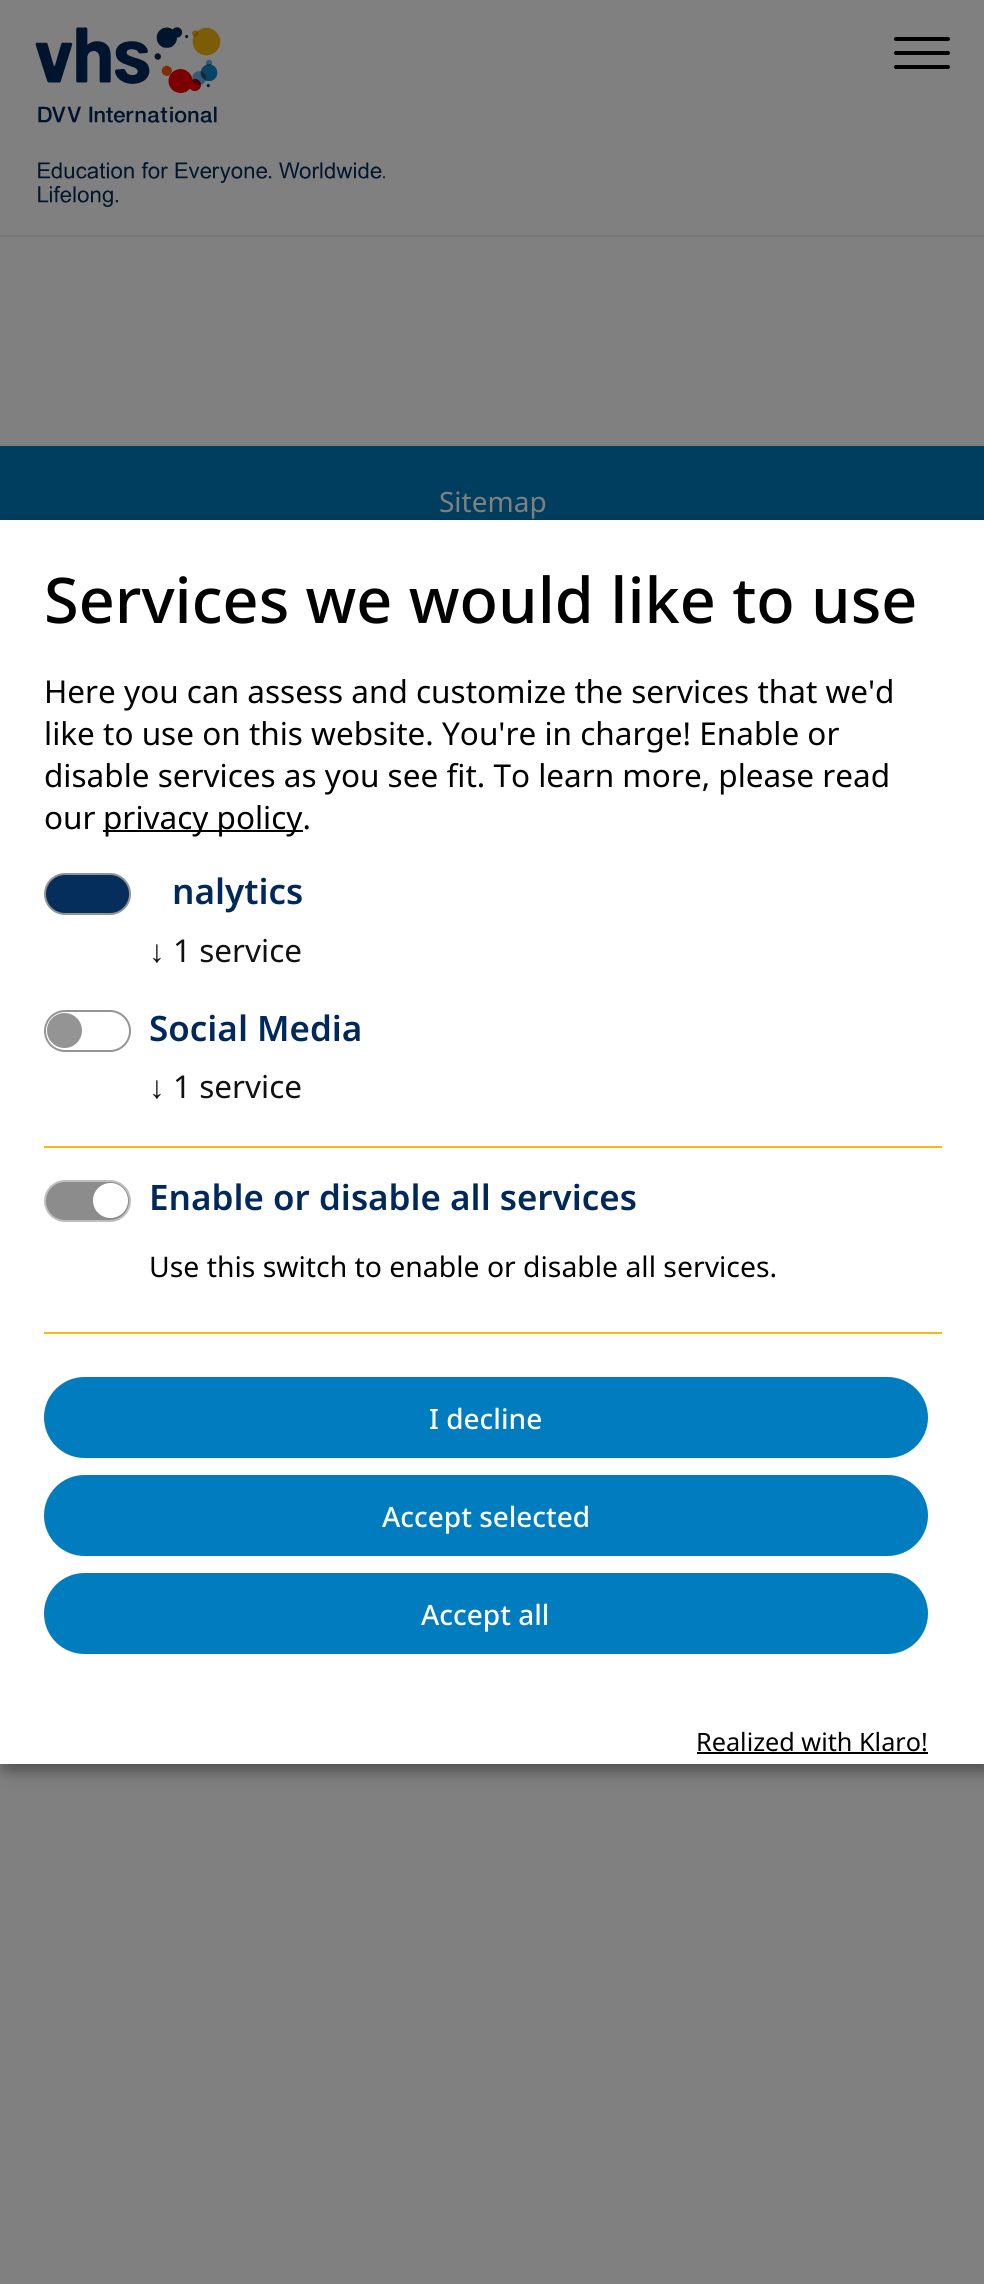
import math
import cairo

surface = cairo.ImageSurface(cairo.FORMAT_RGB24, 984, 2284)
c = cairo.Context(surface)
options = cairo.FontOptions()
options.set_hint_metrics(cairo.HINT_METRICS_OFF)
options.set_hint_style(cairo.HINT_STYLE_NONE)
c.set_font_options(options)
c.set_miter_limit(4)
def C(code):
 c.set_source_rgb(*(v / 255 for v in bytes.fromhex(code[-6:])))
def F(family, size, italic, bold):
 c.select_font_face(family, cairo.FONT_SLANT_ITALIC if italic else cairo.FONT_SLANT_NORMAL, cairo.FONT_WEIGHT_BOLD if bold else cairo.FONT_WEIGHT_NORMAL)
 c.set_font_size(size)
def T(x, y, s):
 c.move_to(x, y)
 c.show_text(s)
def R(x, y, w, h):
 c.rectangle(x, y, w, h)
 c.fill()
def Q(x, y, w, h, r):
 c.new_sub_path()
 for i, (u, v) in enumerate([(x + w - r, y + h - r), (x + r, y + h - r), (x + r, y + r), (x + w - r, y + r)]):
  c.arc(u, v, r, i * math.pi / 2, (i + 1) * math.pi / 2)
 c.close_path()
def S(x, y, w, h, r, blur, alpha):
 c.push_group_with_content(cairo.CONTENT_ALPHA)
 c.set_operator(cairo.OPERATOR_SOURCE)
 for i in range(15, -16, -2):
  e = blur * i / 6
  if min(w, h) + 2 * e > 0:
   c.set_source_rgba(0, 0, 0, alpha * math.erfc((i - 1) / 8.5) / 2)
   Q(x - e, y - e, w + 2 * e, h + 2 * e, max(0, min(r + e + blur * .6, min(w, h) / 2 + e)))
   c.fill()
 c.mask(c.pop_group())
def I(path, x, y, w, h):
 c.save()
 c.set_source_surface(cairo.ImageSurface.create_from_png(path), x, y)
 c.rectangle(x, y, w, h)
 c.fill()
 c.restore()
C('808080')
c.paint()
C('777777')
R(0,235,984,2)
I('1.png',35,27,350,180)
C('000000')
Q(894,37,56,4,2)
c.fill()
Q(894,51,56,4,2)
c.fill()
Q(894,65,56,4,2)
c.fill()
C('003e60')
R(0,446,984,74)
F('Noto Sans',28,0,0)
C('808080')
T(439,512,'Sitemap')
C('000000')
S(9,529,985,1244,0,9,.19)
S(0,527,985,1244,0,5,.2)
C('ffffff')
R(0,520,984,1244)
F('Noto Sans Medium',63,0,0)
C('000000')
T(44,623,'Services we would like to use')
F('Noto Sans',31.5,0,0)
T(44,703,'Here you can assess and customize the services that we\'d')
T(44,745,'like to use on this website. You\'re in charge! Enable or')
T(44,787,'disable services as you see fit. To learn more, please read')
T(44,829,'our')
R(103,830,200,2)
T(103,829,'privacy policy.')
C('052e5c')
Q(45,874,85,40,20)
c.fill_preserve()
C('949494')
c.stroke()
F('Noto Sans SemiBold',35,0,0)
C('01285a')
T(172,904,'nalytics')
F('Liberation Serif',31.5,0,0)
C('111111')
T(149,962,'↓')
F('Noto Sans',31.5,0,0)
T(173,962,'1 service')
Q(45,1011,85,40,20)
C('949494')
c.stroke()
c.arc(64.5,1030.5,17.5,0,2 * math.pi)
c.fill()
F('Noto Sans SemiBold',35,0,0)
C('01285a')
T(149,1041,'Social Media')
F('Liberation Serif',31.5,0,0)
C('111111')
T(149,1098,'↓')
F('Noto Sans',31.5,0,0)
T(173,1098,'1 service')
C('fab80f')
R(44,1146,898,2)
C('8c8c8c')
Q(45,1181,85,40,20)
c.fill_preserve()
C('bfbfbf')
c.stroke()
C('ffffff')
c.arc(110.5,1200.5,17.5,0,2 * math.pi)
c.fill()
F('Noto Sans SemiBold',35,0,0)
C('01285a')
T(149,1210,'Enable or disable all services')
F('Noto Sans',28.35,0,0)
C('000000')
T(149,1277,'Use this switch to enable or disable all services.')
C('fab80f')
R(44,1332,898,2)
C('007cbf')
Q(45,1378,882,79,39.5)
c.fill_preserve()
c.stroke()
F('Noto Sans Medium',28,0,0)
C('ffffff')
T(429,1429,'I decline')
C('007cbf')
Q(45,1476,882,79,39.5)
c.fill_preserve()
c.stroke()
C('ffffff')
T(382,1527,'Accept selected')
C('007cbf')
Q(45,1574,882,79,39.5)
c.fill_preserve()
c.stroke()
C('ffffff')
T(421,1625,'Accept all')
F('Noto Sans',25.25,0,0)
C('000000')
T(696,1751,'Realized with Klaro!')
R(697,1752,231,2)
surface.write_to_png('o.png')
